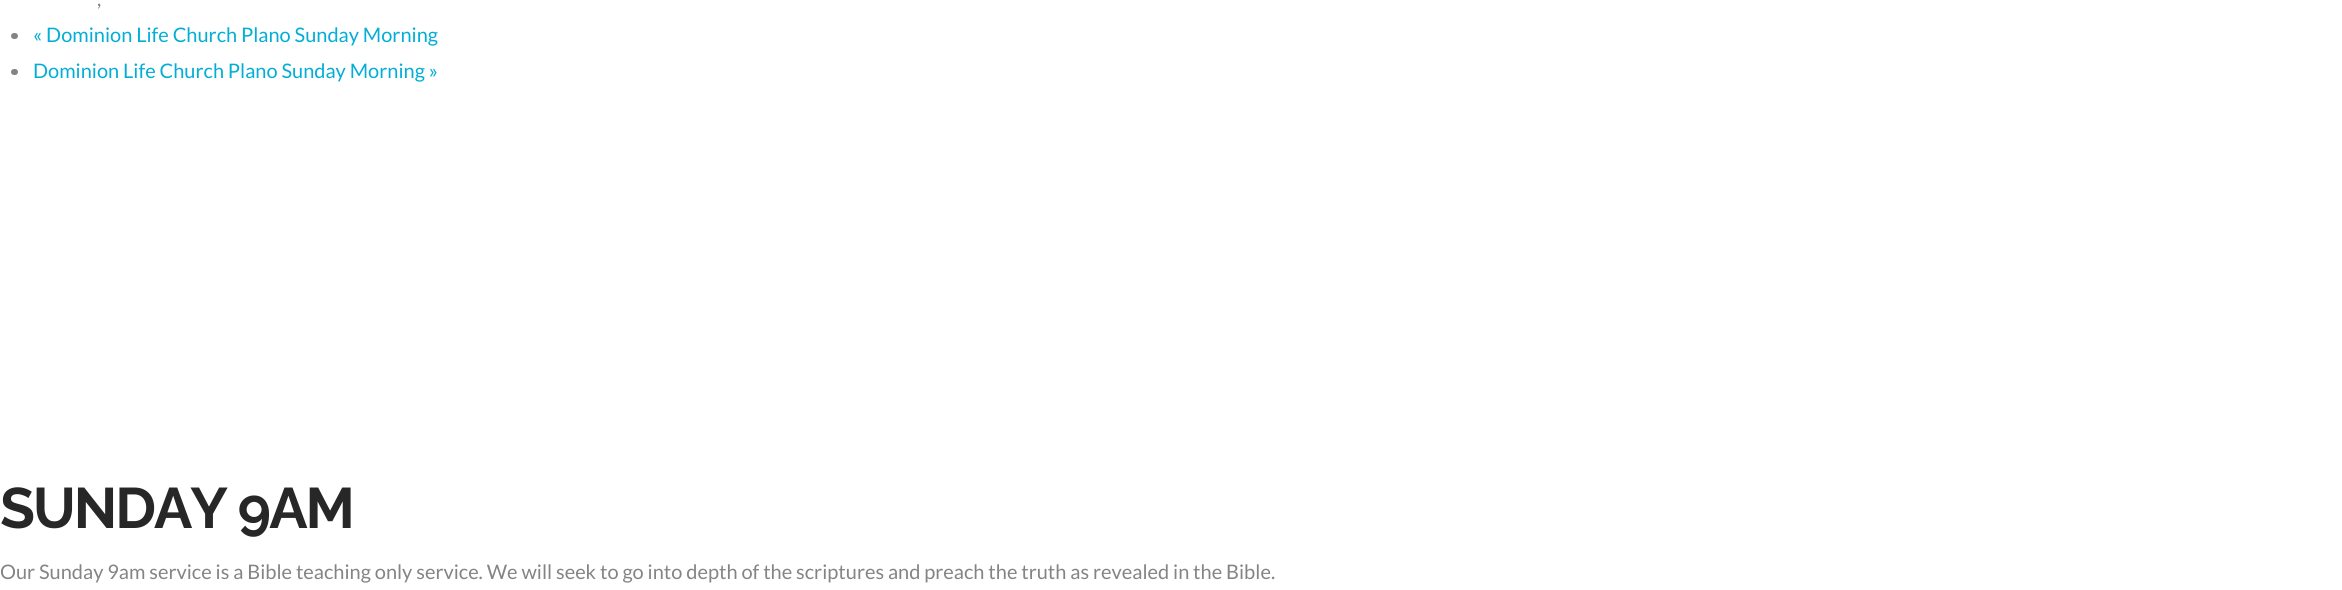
import math
import cairo

surface = cairo.ImageSurface(cairo.FORMAT_RGB24, 2342, 590)
c = cairo.Context(surface)
options = cairo.FontOptions()
options.set_hint_metrics(cairo.HINT_METRICS_OFF)
options.set_hint_style(cairo.HINT_STYLE_NONE)
c.set_font_options(options)
c.set_miter_limit(4)
def C(code):
 c.set_source_rgb(*(v / 255 for v in bytes.fromhex(code[-6:])))
def F(family, size, italic, bold):
 c.select_font_face(family, cairo.FONT_SLANT_ITALIC if italic else cairo.FONT_SLANT_NORMAL, cairo.FONT_WEIGHT_BOLD if bold else cairo.FONT_WEIGHT_NORMAL)
 c.set_font_size(size)
def T(x, y, s):
 c.move_to(x, y)
 c.show_text(s)
def L(x, y, s, letter, word):
 c.move_to(x, y)
 for ch in s:
  c.show_text(ch)
  c.rel_move_to(letter + word * (ch == ' '), 0)
def Q(x, y, w, h, r):
 c.new_sub_path()
 for i, (u, v) in enumerate([(x + w - r, y + h - r), (x + r, y + h - r), (x + r, y + r), (x + w - r, y + r)]):
  c.arc(u, v, r, i * math.pi / 2, (i + 1) * math.pi / 2)
 c.close_path()
C('ffffff')
c.paint()
F('Lato',20,0,0)
C('848484')
T(97,6,',')
Q(11,33,7,6,3)
c.fill()
C('02aed6')
T(33,42,'« Dominion Life Church Plano Sunday Morning')
C('848484')
Q(11,69,7,6,3)
c.fill()
C('02aed6')
T(33,78,'Dominion Life Church Plano Sunday Morning »')
F('Raleway',57,0,1)
C('272727')
L(0,528,'SUNDAY 9AM',-2,0)
F('Lato',20,0,0)
C('848484')
T(0,579,'Our Sunday 9am service is a Bible teaching only service. We will seek to go into depth of the scriptures and preach the truth as revealed in the Bible.')
surface.write_to_png('o.png')
